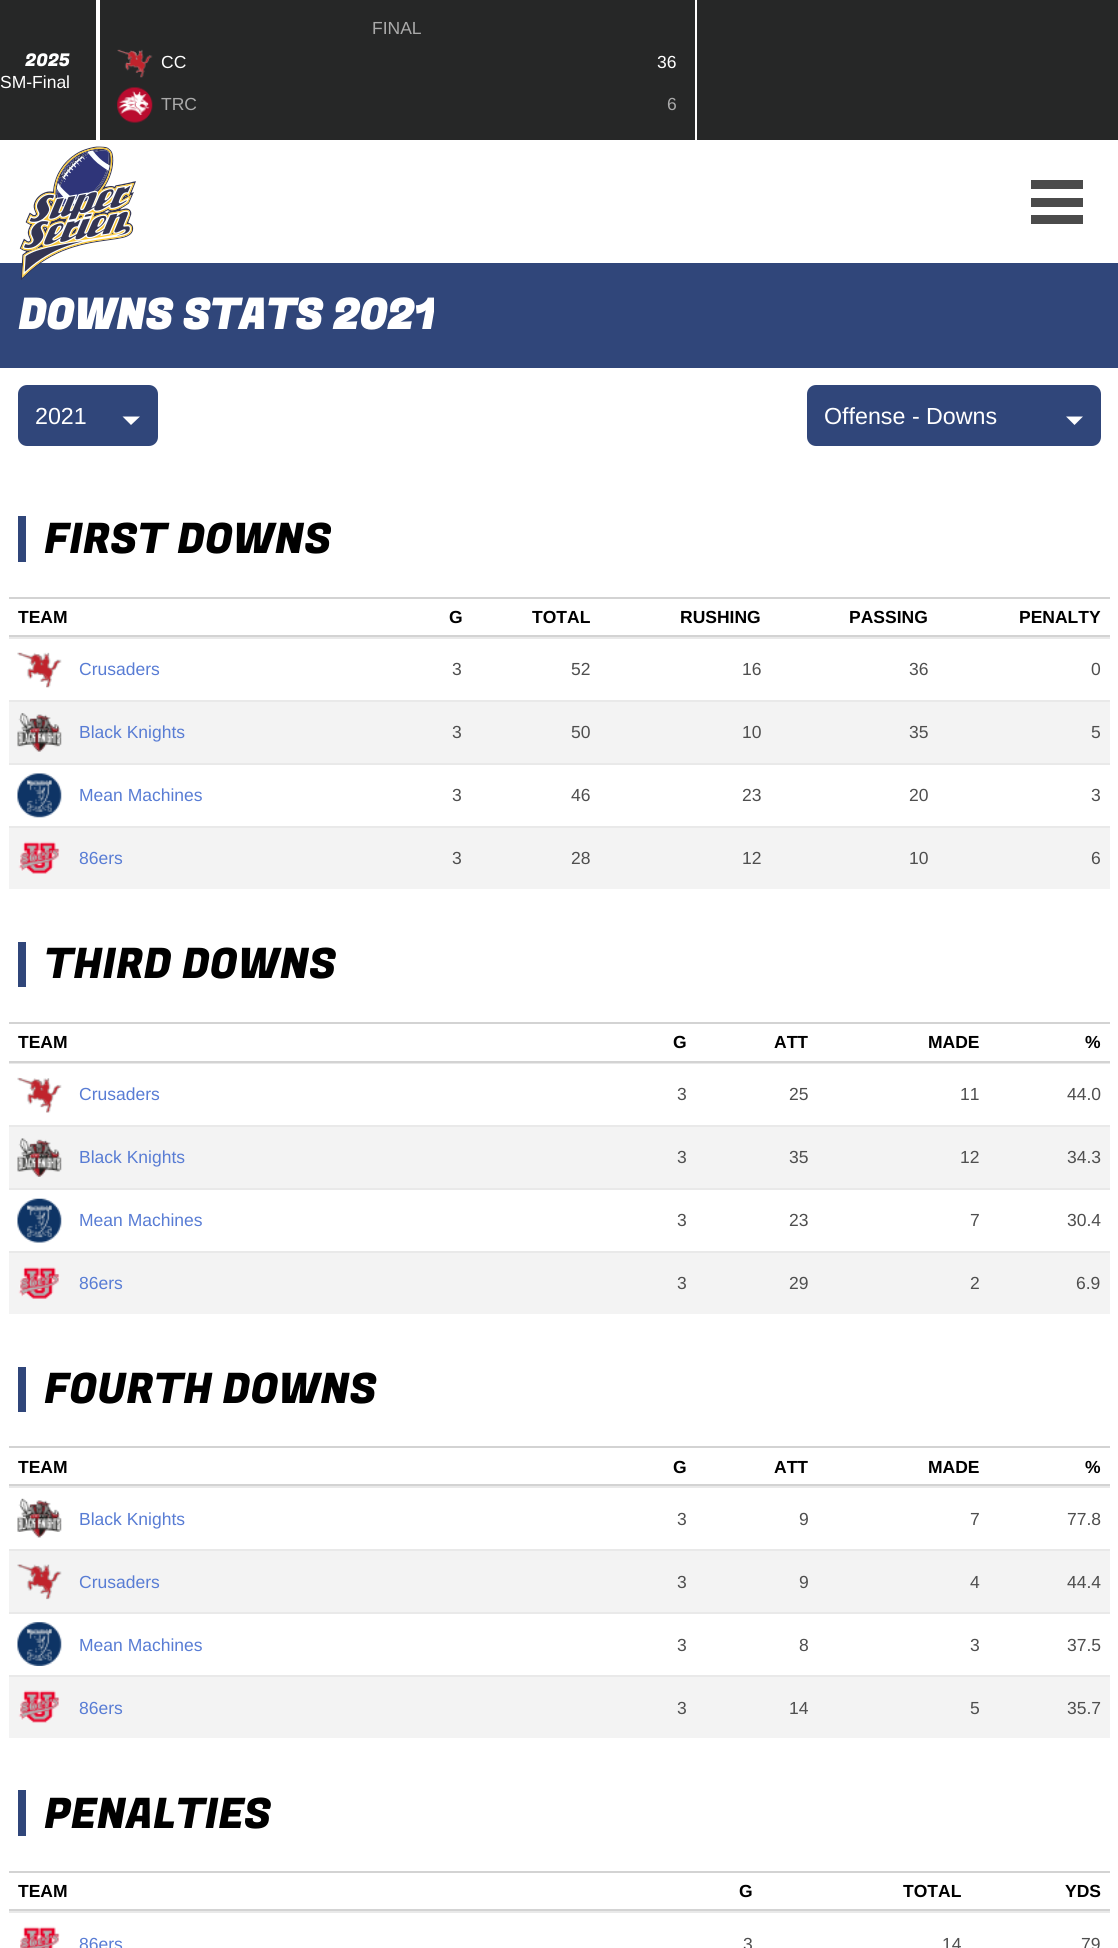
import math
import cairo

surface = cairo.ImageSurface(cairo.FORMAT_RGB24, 1118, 1948)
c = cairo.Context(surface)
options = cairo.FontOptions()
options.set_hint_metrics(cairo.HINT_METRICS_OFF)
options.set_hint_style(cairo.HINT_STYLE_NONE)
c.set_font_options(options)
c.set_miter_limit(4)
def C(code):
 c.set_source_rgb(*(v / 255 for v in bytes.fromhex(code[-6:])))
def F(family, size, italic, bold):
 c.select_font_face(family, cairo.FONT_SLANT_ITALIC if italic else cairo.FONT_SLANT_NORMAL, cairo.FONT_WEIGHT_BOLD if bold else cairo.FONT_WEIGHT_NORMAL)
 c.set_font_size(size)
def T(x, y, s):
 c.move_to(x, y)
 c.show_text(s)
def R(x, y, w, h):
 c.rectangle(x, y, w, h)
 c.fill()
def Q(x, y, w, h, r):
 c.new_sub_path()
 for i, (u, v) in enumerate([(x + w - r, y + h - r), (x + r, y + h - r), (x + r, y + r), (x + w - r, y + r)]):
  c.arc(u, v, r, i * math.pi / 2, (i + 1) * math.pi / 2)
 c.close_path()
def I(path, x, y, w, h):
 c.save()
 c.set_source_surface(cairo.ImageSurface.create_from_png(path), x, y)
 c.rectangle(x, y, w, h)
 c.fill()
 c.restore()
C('ffffff')
c.paint()
C('262727')
R(0,0,1118,140)
C('ffffff')
R(96,0,4,140)
F('Fugaz One',17.5,0,0)
T(25,66,'2025')
F('Liberation Sans',17.5,0,0)
T(0,88,'SM-Final')
R(695,0,2,140)
C('aaaaaa')
T(372,34,'FINAL')
I('1.png',117,49,36,29)
C('ffffff')
T(161,68,'CC')
T(657,68,'36')
I('2.png',117,87,36,36)
C('aaaaaa')
T(161,110,'TRC')
T(667,110,'6')
C('30467a')
R(0,263,1118,105)
I('3.png',19,146,117,134)
C('4b4b4b')
R(1031,180,52,9)
R(1031,198,52,9)
R(1031,215,52,9)
c.save()
c.rectangle(18,285,416,62)
c.clip()
F('Fugaz One',42,0,1)
C('ffffff')
T(18,329,'DOWNS STATS 2021')
c.restore()
C('30467a')
Q(18,385,140,61,9)
c.fill()
F('Liberation Sans',23.25,0,0)
C('ffffff')
T(35,424,'2021')
c.new_path()
c.move_to(122.5,416.5)
c.line_to(140,416.5)
c.line_to(131,425)
c.close_path()
c.fill()
C('30467a')
Q(807,385,294,61,9)
c.fill()
C('ffffff')
T(824,424,'Offense - Downs')
c.new_path()
c.move_to(1066,416.5)
c.line_to(1083,416.5)
c.line_to(1074.5,425)
c.close_path()
c.fill()
C('30467a')
R(18,516,8,46)
F('Fugaz One',42,0,0)
C('000000')
T(44,553,'FIRST DOWNS')
C('d3d3d3')
R(9,597,1101,2)
R(9,635,1101,2)
F('Liberation Sans',17.5,0,1)
C('000000')
T(18,623,'TEAM')
T(449,623,'G')
T(532,623,'TOTAL')
T(680,623,'RUSHING')
T(849,623,'PASSING')
T(1019,623,'PENALTY')
C('e9e9e9')
R(9,637,1101,2)
I('4.png',17,652,45,36)
F('Liberation Sans',17.5,0,0)
C('587cd4')
T(79,675,'Crusaders')
C('4e4e4e')
T(452,675,'3')
T(571,675,'52')
T(742,675,'16')
T(909,675,'36')
T(1091,675,'0')
C('f3f3f3')
R(9,702,1101,61)
C('e9e9e9')
R(9,700,1101,2)
I('5.png',17,713,45,39)
C('587cd4')
T(79,738,'Black Knights')
C('4e4e4e')
T(452,738,'3')
T(571,738,'50')
T(742,738,'10')
T(909,738,'35')
T(1091,738,'5')
C('e9e9e9')
R(9,763,1101,2)
I('6.png',17,773,45,45)
C('587cd4')
T(79,801,'Mean Machines')
C('4e4e4e')
T(452,801,'3')
T(571,801,'46')
T(742,801,'23')
T(909,801,'20')
T(1091,801,'3')
C('f3f3f3')
R(9,828,1101,61)
C('e9e9e9')
R(9,826,1101,2)
I('7.png',18,841,42,33)
C('587cd4')
T(79,864,'86ers')
C('4e4e4e')
T(452,864,'3')
T(571,864,'28')
T(742,864,'12')
T(909,864,'10')
T(1091,864,'6')
C('30467a')
R(18,942,8,45)
F('Fugaz One',42,0,0)
C('000000')
T(44,978,'THIRD DOWNS')
C('d3d3d3')
R(9,1022,1101,2)
R(9,1061,1101,2)
F('Liberation Sans',17.5,0,1)
C('000000')
T(18,1048,'TEAM')
T(673,1048,'G')
T(774,1048,'ATT')
T(928,1048,'MADE')
T(1085,1048,'%')
C('e9e9e9')
R(9,1063,1101,1)
I('8.png',17,1077,45,36)
F('Liberation Sans',17.5,0,0)
C('587cd4')
T(79,1100,'Crusaders')
C('4e4e4e')
T(677,1100,'3')
T(789,1100,'25')
T(960,1100,'11')
T(1067,1100,'44.0')
C('f3f3f3')
R(9,1127,1101,61)
C('e9e9e9')
R(9,1125,1101,2)
I('9.png',17,1138,45,39)
C('587cd4')
T(79,1163,'Black Knights')
C('4e4e4e')
T(677,1163,'3')
T(789,1163,'35')
T(960,1163,'12')
T(1067,1163,'34.3')
C('e9e9e9')
R(9,1188,1101,2)
I('10.png',17,1198,45,45)
C('587cd4')
T(79,1226,'Mean Machines')
C('4e4e4e')
T(677,1226,'3')
T(789,1226,'23')
T(970,1226,'7')
T(1067,1226,'30.4')
C('f3f3f3')
R(9,1253,1101,61)
C('e9e9e9')
R(9,1251,1101,2)
I('11.png',18,1267,42,32)
C('587cd4')
T(79,1289,'86ers')
C('4e4e4e')
T(677,1289,'3')
T(789,1289,'29')
T(970,1289,'2')
T(1076,1289,'6.9')
C('30467a')
R(18,1367,8,45)
F('Fugaz One',42,0,0)
C('000000')
T(44,1403,'FOURTH DOWNS')
C('d3d3d3')
R(9,1446,1101,2)
R(9,1484,1101,2)
F('Liberation Sans',17.5,0,1)
C('000000')
T(18,1473,'TEAM')
T(673,1473,'G')
T(774,1473,'ATT')
T(928,1473,'MADE')
T(1085,1473,'%')
C('e9e9e9')
R(9,1486,1101,2)
I('12.png',17,1498,45,40)
F('Liberation Sans',17.5,0,0)
C('587cd4')
T(79,1525,'Black Knights')
C('4e4e4e')
T(677,1525,'3')
T(799,1525,'9')
T(970,1525,'7')
T(1067,1525,'77.8')
C('f3f3f3')
R(9,1551,1101,61)
C('e9e9e9')
R(9,1549,1101,2)
I('13.png',17,1564,45,36)
C('587cd4')
T(79,1588,'Crusaders')
C('4e4e4e')
T(677,1588,'3')
T(799,1588,'9')
T(970,1588,'4')
T(1067,1588,'44.4')
C('e9e9e9')
R(9,1612,1101,2)
I('14.png',17,1622,45,44)
C('587cd4')
T(79,1651,'Mean Machines')
C('4e4e4e')
T(677,1651,'3')
T(799,1651,'8')
T(970,1651,'3')
T(1067,1651,'37.5')
C('f3f3f3')
R(9,1677,1101,61)
C('e9e9e9')
R(9,1675,1101,2)
I('15.png',18,1690,42,33)
C('587cd4')
T(79,1714,'86ers')
C('4e4e4e')
T(677,1714,'3')
T(789,1714,'14')
T(970,1714,'5')
T(1067,1714,'35.7')
C('30467a')
R(18,1790,8,46)
F('Fugaz One',42,0,0)
C('000000')
T(44,1828,'PENALTIES')
C('d3d3d3')
R(9,1871,1101,2)
R(9,1909,1101,2)
F('Liberation Sans',17.5,0,1)
C('000000')
T(18,1897,'TEAM')
T(739,1897,'G')
T(903,1897,'TOTAL')
T(1065,1897,'YDS')
C('e9e9e9')
R(9,1911,1101,2)
I('16.png',20,1926,40,22)
F('Liberation Sans',17.5,0,0)
C('587cd4')
T(79,1950,'86ers')
C('4e4e4e')
T(743,1950,'3')
T(942,1950,'14')
T(1081,1950,'79')
surface.write_to_png('o.png')
